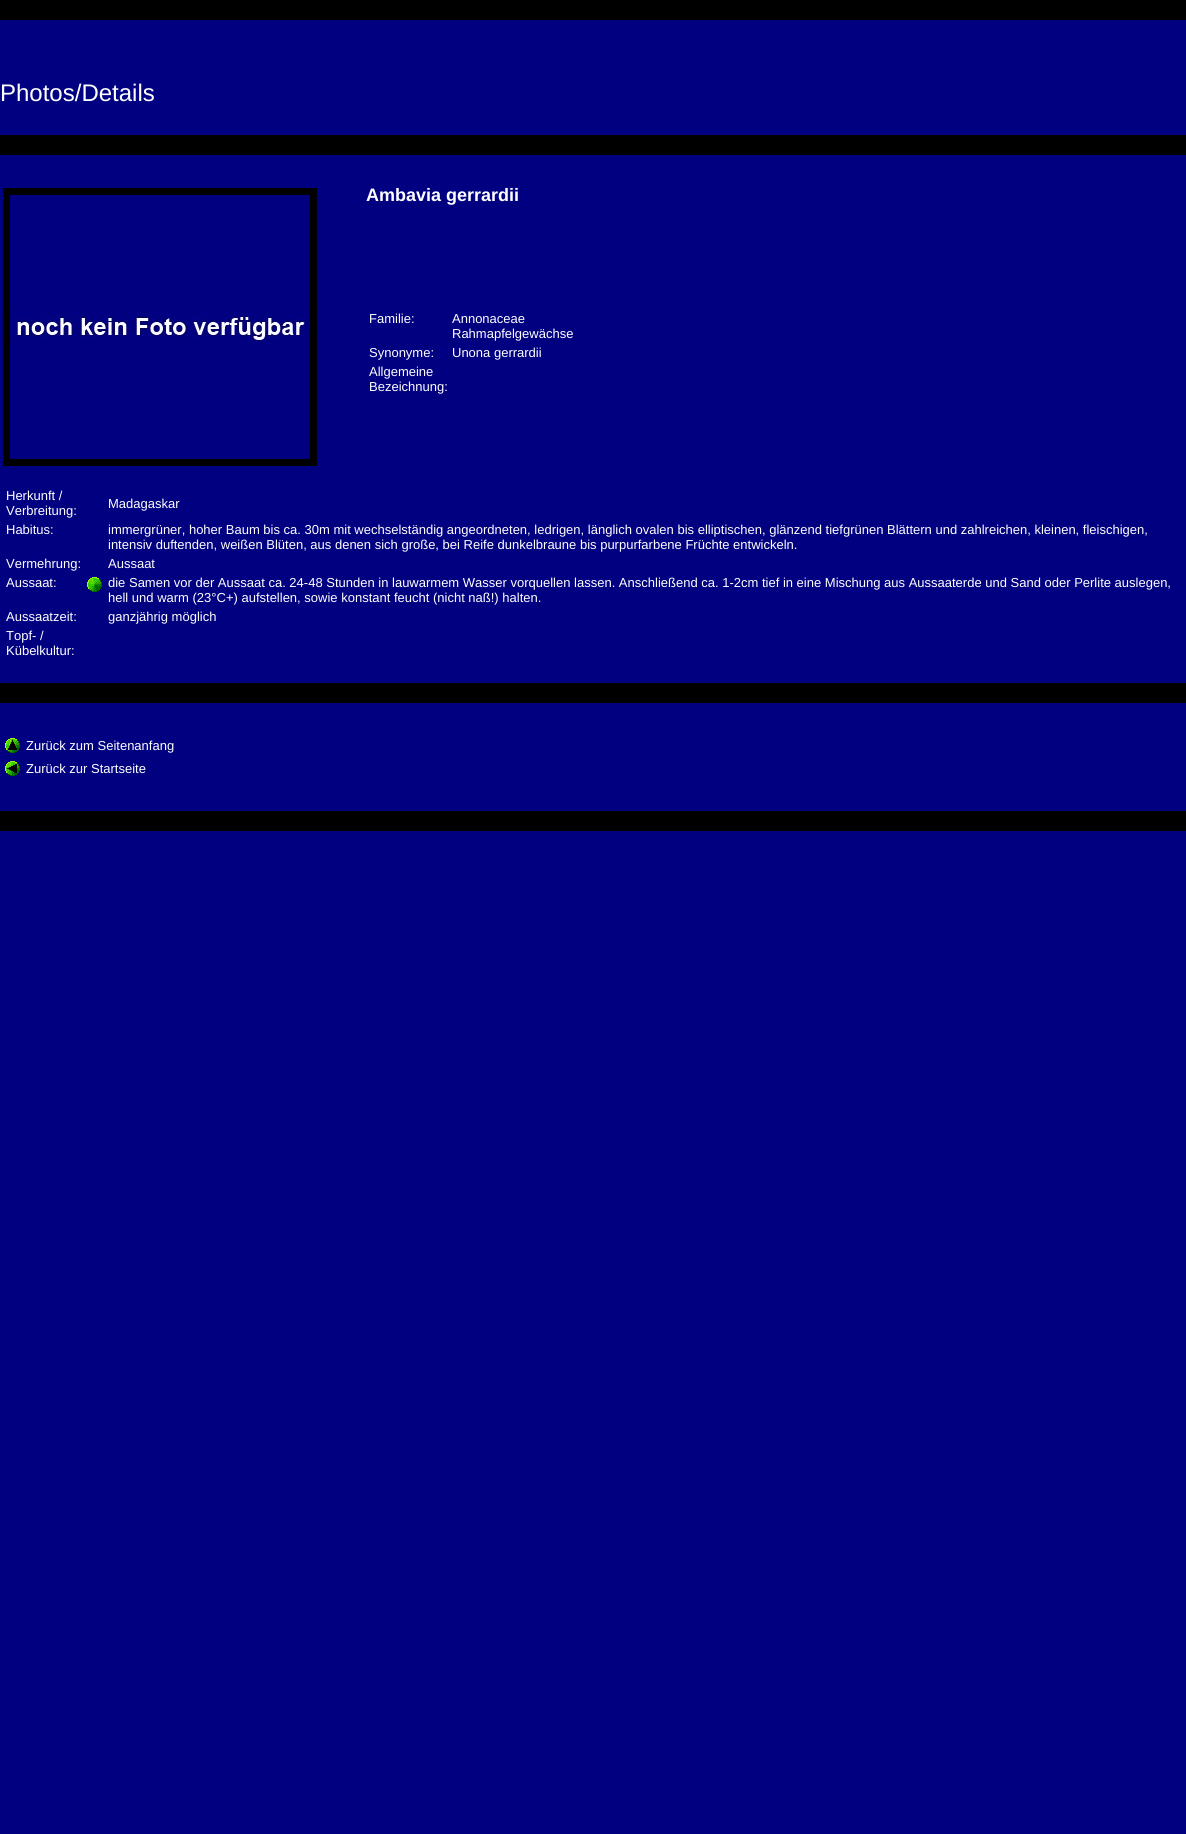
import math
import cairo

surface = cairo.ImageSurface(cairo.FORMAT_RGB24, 1186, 1834)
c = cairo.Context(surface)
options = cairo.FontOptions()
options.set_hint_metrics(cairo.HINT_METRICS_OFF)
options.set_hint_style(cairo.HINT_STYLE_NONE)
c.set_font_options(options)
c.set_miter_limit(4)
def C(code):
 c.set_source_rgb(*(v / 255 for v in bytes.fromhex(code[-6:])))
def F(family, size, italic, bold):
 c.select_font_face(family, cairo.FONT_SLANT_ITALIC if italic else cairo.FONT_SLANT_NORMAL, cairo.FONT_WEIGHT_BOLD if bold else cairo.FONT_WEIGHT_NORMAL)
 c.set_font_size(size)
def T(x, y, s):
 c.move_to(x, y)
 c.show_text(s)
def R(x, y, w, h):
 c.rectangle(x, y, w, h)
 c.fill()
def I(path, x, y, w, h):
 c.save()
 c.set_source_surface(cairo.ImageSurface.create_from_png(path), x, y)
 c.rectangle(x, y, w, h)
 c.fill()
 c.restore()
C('000080')
c.paint()
C('000000')
R(0,0,1186,20)
F('Liberation Sans',24,0,0)
C('ffffff')
T(0,101,'Photos/Details')
C('000000')
R(0,135,1186,20)
R(3,188,314,278)
I('1.png',10,195,300,264)
F('Liberation Sans',18,0,1)
C('ffffff')
T(366,201,'Ambavia gerrardii')
F('Liberation Sans',13,0,0)
T(369,323,'Familie:')
T(452,323,'Annonaceae')
T(452,338,'Rahmapfelgewächse')
T(369,357,'Synonyme:')
T(452,357,'Unona gerrardii')
T(369,376,'Allgemeine')
T(369,391,'Bezeichnung:')
T(6,500,'Herkunft /')
T(6,515,'Verbreitung:')
T(108,508,'Madagaskar')
T(6,534,'Habitus:')
T(108,534,'immergrüner, hoher Baum bis ca. 30m mit wechselständig angeordneten, ledrigen, länglich ovalen bis elliptischen, glänzend tiefgrünen Blättern und zahlreichen, kleinen, fleischigen,')
T(108,549,'intensiv duftenden, weißen Blüten, aus denen sich große, bei Reife dunkelbraune bis purpurfarbene Früchte entwickeln.')
T(6,568,'Vermehrung:')
T(108,568,'Aussaat')
T(6,587,'Aussaat:')
I('2.png',87,577,15,15)
T(108,587,'die Samen vor der Aussaat ca. 24-48 Stunden in lauwarmem Wasser vorquellen lassen. Anschließend ca. 1-2cm tief in eine Mischung aus Aussaaterde und Sand oder Perlite auslegen,')
T(108,602,'hell und warm (23°C+) aufstellen, sowie konstant feucht (nicht naß!) halten.')
T(6,621,'Aussaatzeit:')
T(108,621,'ganzjährig möglich')
T(6,640,'Topf- /')
T(6,655,'Kübelkultur:')
C('000000')
R(0,683,1186,20)
I('3.png',5,738,15,15)
C('ffffff')
T(26,750,'Zurück zum Seitenanfang')
I('4.png',5,761,15,15)
T(26,773,'Zurück zur Startseite')
C('000000')
R(0,811,1186,20)
surface.write_to_png('o.png')
